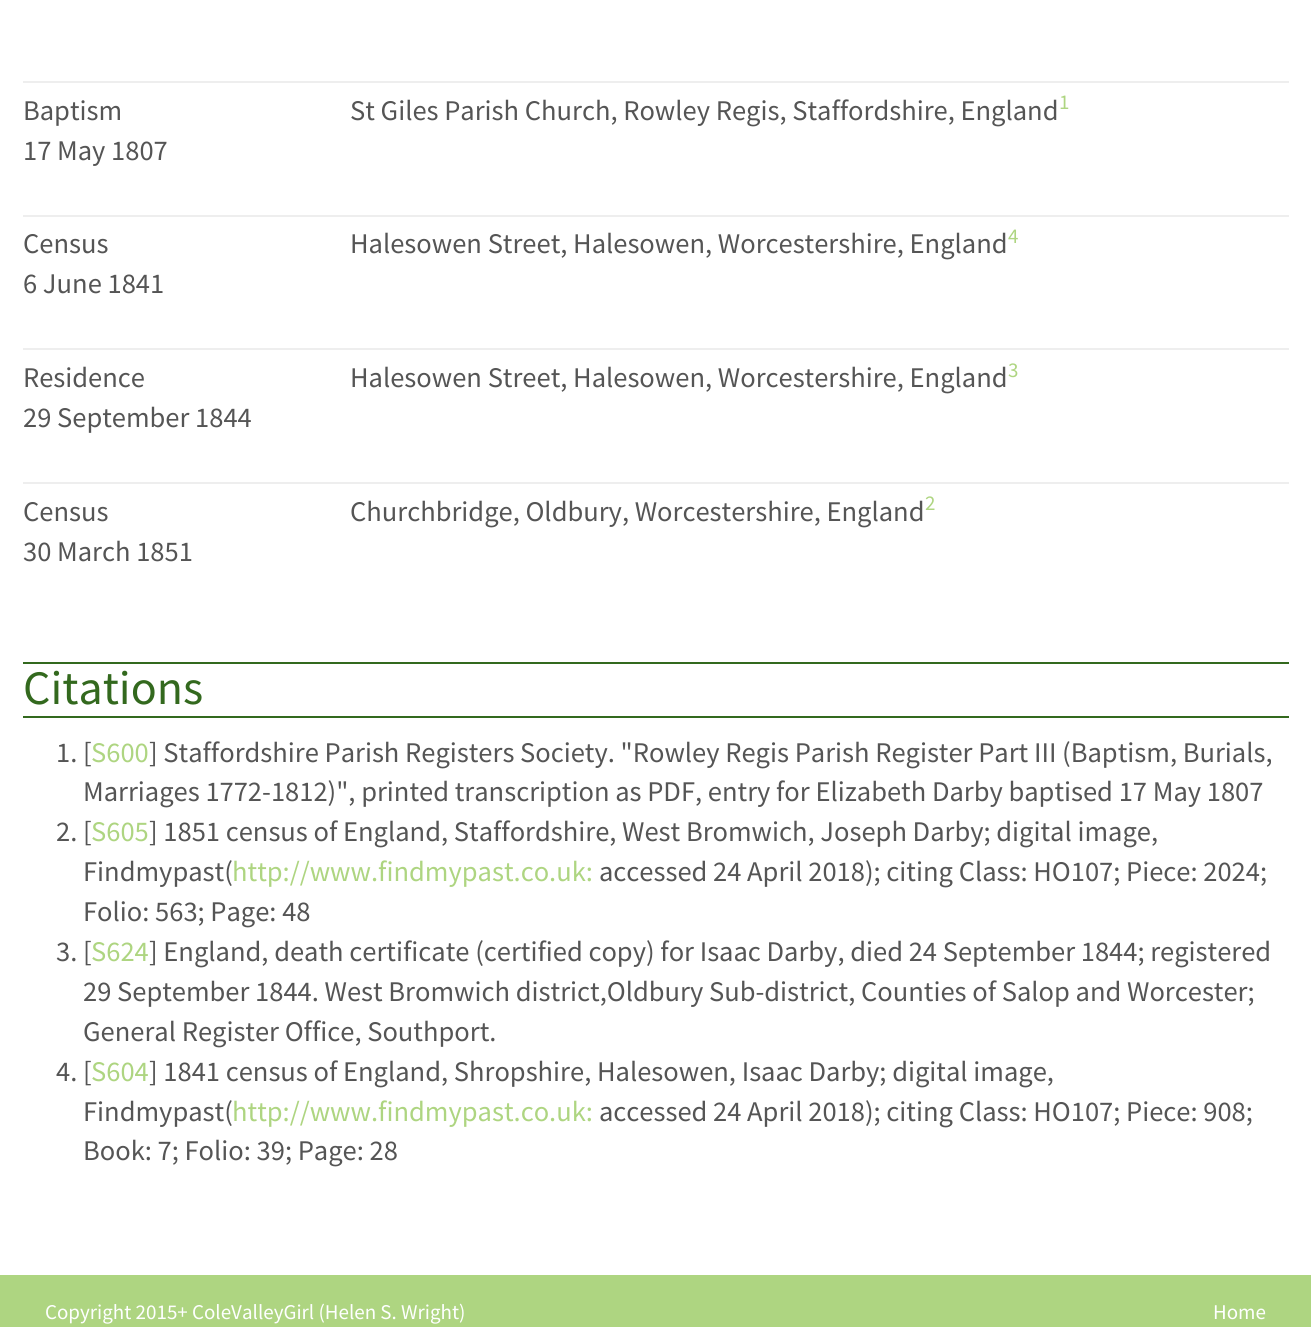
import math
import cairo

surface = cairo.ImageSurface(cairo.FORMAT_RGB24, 1311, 1327)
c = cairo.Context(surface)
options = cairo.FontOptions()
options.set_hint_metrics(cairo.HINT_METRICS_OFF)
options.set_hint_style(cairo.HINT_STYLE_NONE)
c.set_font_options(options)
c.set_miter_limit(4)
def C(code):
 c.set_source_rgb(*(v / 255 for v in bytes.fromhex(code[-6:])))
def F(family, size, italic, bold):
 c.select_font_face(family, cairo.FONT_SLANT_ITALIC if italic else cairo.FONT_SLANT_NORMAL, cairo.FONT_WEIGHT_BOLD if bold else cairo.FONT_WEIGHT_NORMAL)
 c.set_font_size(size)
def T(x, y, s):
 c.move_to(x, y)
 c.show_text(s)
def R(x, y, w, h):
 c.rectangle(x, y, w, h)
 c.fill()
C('ffffff')
c.paint()
C('eeeeee')
R(23,81,1266,2)
F('Source Sans Pro',28.5,0,0)
C('555555')
T(23,120,'Baptism')
T(23,160,'17 May 1807')
T(350,120,'St Giles Parish Church, Rowley Regis, Staffordshire, England')
F('Source Sans Pro',21,0,0)
C('aed581')
T(1059,109,'1')
C('eeeeee')
R(23,215,1266,2)
F('Source Sans Pro',28.5,0,0)
C('555555')
T(23,253,'Census')
T(23,293,'6 June 1841')
T(350,253,'Halesowen Street, Halesowen, Worcestershire, England')
F('Source Sans Pro',21,0,0)
C('aed581')
T(1008,243,'4')
C('eeeeee')
R(23,348,1266,2)
F('Source Sans Pro',28.5,0,0)
C('555555')
T(23,387,'Residence')
T(23,427,'29 September 1844')
T(350,387,'Halesowen Street, Halesowen, Worcestershire, England')
F('Source Sans Pro',21,0,0)
C('aed581')
T(1008,377,'3')
C('eeeeee')
R(23,482,1266,2)
F('Source Sans Pro',28.5,0,0)
C('555555')
T(23,521,'Census')
T(23,561,'30 March 1851')
T(350,521,'Churchbridge, Oldbury, Worcestershire, England')
F('Source Sans Pro',21,0,0)
C('aed581')
T(925,510,'2')
C('33691e')
R(23,662,1266,2)
R(23,716,1266,2)
F('Source Sans Pro',48,0,0)
T(23,704,'Citations')
F('Source Sans Pro',28.5,0,0)
C('555555')
T(56,762,'1. [')
C('aed581')
T(91,762,'S600')
C('555555')
T(149,762,'] Staffordshire Parish Registers Society. "Rowley Regis Parish Register Part III (Baptism, Burials,')
T(83,801,'Marriages 1772-1812)", printed transcription as PDF, entry for Elizabeth Darby baptised 17 May 1807')
T(56,841,'2. [')
C('aed581')
T(91,841,'S605')
C('555555')
T(149,841,'] 1851 census of England, Staffordshire, West Bromwich, Joseph Darby; digital image,')
T(83,881,'Findmypast(')
C('aed581')
T(232,881,'http://www.findmypast.co.uk:')
C('555555')
T(599,881,'accessed 24 April 2018); citing Class: HO107; Piece: 2024;')
T(83,921,'Folio: 563; Page: 48')
T(56,961,'3. [')
C('aed581')
T(91,961,'S624')
C('555555')
T(149,961,'] England, death certificate (certified copy) for Isaac Darby, died 24 September 1844; registered')
T(83,1001,'29 September 1844. West Bromwich district,Oldbury Sub-district, Counties of Salop and Worcester;')
T(83,1041,'General Register Office, Southport.')
T(56,1081,'4. [')
C('aed581')
T(91,1081,'S604')
C('555555')
T(149,1081,'] 1841 census of England, Shropshire, Halesowen, Isaac Darby; digital image,')
T(83,1121,'Findmypast(')
C('aed581')
T(232,1121,'http://www.findmypast.co.uk:')
C('555555')
T(599,1121,'accessed 24 April 2018); citing Class: HO107; Piece: 908;')
T(83,1160,'Book: 7; Folio: 39; Page: 28')
C('aed581')
R(0,1275,1311,52)
F('Source Sans Pro',21,0,0)
C('feffff')
T(45,1319,'Copyright 2015+ ColeValleyGirl (Helen S. Wright)')
T(1213,1319,'Home')
surface.write_to_png('o.png')
